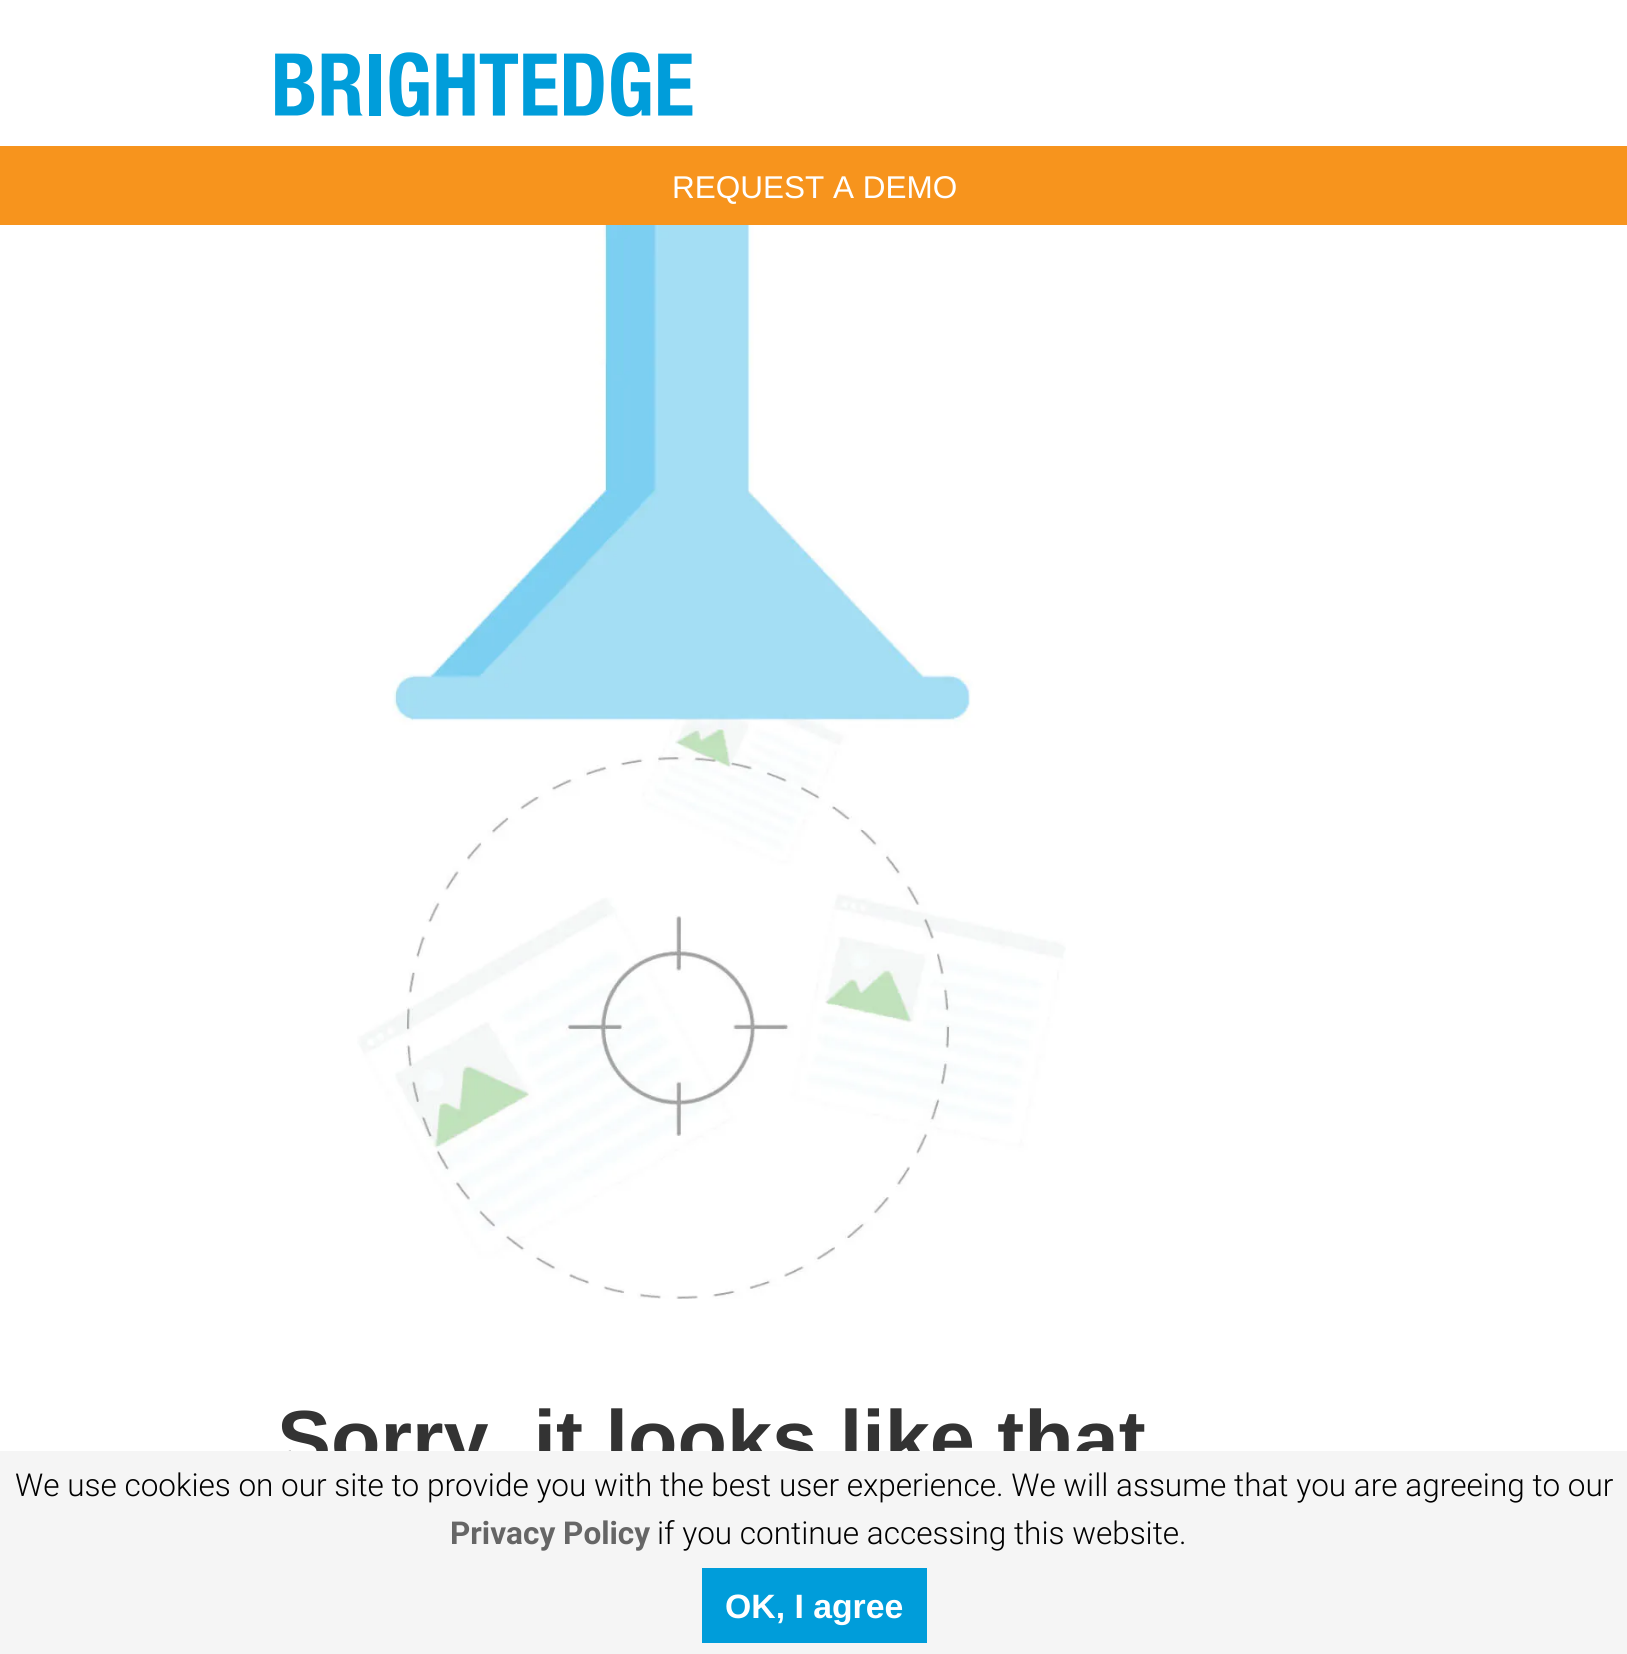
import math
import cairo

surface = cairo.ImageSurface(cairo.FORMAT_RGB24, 1627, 1654)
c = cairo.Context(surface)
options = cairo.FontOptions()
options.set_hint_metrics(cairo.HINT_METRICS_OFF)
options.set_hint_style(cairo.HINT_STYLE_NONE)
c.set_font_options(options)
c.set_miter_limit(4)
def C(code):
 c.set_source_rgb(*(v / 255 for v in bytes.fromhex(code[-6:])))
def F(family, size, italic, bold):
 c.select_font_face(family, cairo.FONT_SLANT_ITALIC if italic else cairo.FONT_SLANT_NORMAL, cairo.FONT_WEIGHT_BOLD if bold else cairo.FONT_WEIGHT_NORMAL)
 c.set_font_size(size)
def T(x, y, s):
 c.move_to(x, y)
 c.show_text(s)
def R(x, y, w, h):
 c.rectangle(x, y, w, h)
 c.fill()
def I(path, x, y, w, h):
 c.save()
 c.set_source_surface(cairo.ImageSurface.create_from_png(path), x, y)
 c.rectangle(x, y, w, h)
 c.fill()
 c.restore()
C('ffffff')
c.paint()
I('1.png',275,52,418,65)
C('f7941d')
R(0,146,1627,79)
F('Liberation Sans',31.5,0,0)
C('ffffff')
T(672,198,'REQUEST A DEMO')
I('2.png',357,225,709,1074)
F('Liberation Sans',81,0,1)
C('333333')
T(277,1467,'Sorry, it looks like that')
C('f5f5f5')
R(0,1451,1627,203)
F('Roboto Light',31.5,0,0)
C('000000')
T(15,1496,'We use cookies on our site to provide you with the best user experience. We will assume that you are agreeing to our')
F('Roboto',31.5,0,1)
C('666666')
T(450,1544,'Privacy Policy')
F('Roboto Light',31.5,0,0)
C('000000')
T(657,1544,'if you continue accessing this website.')
C('009dda')
R(702,1568,225,75)
F('Liberation Sans',33.75,0,1)
C('ffffff')
T(725,1618,'OK, I agree')
surface.write_to_png('o.png')
